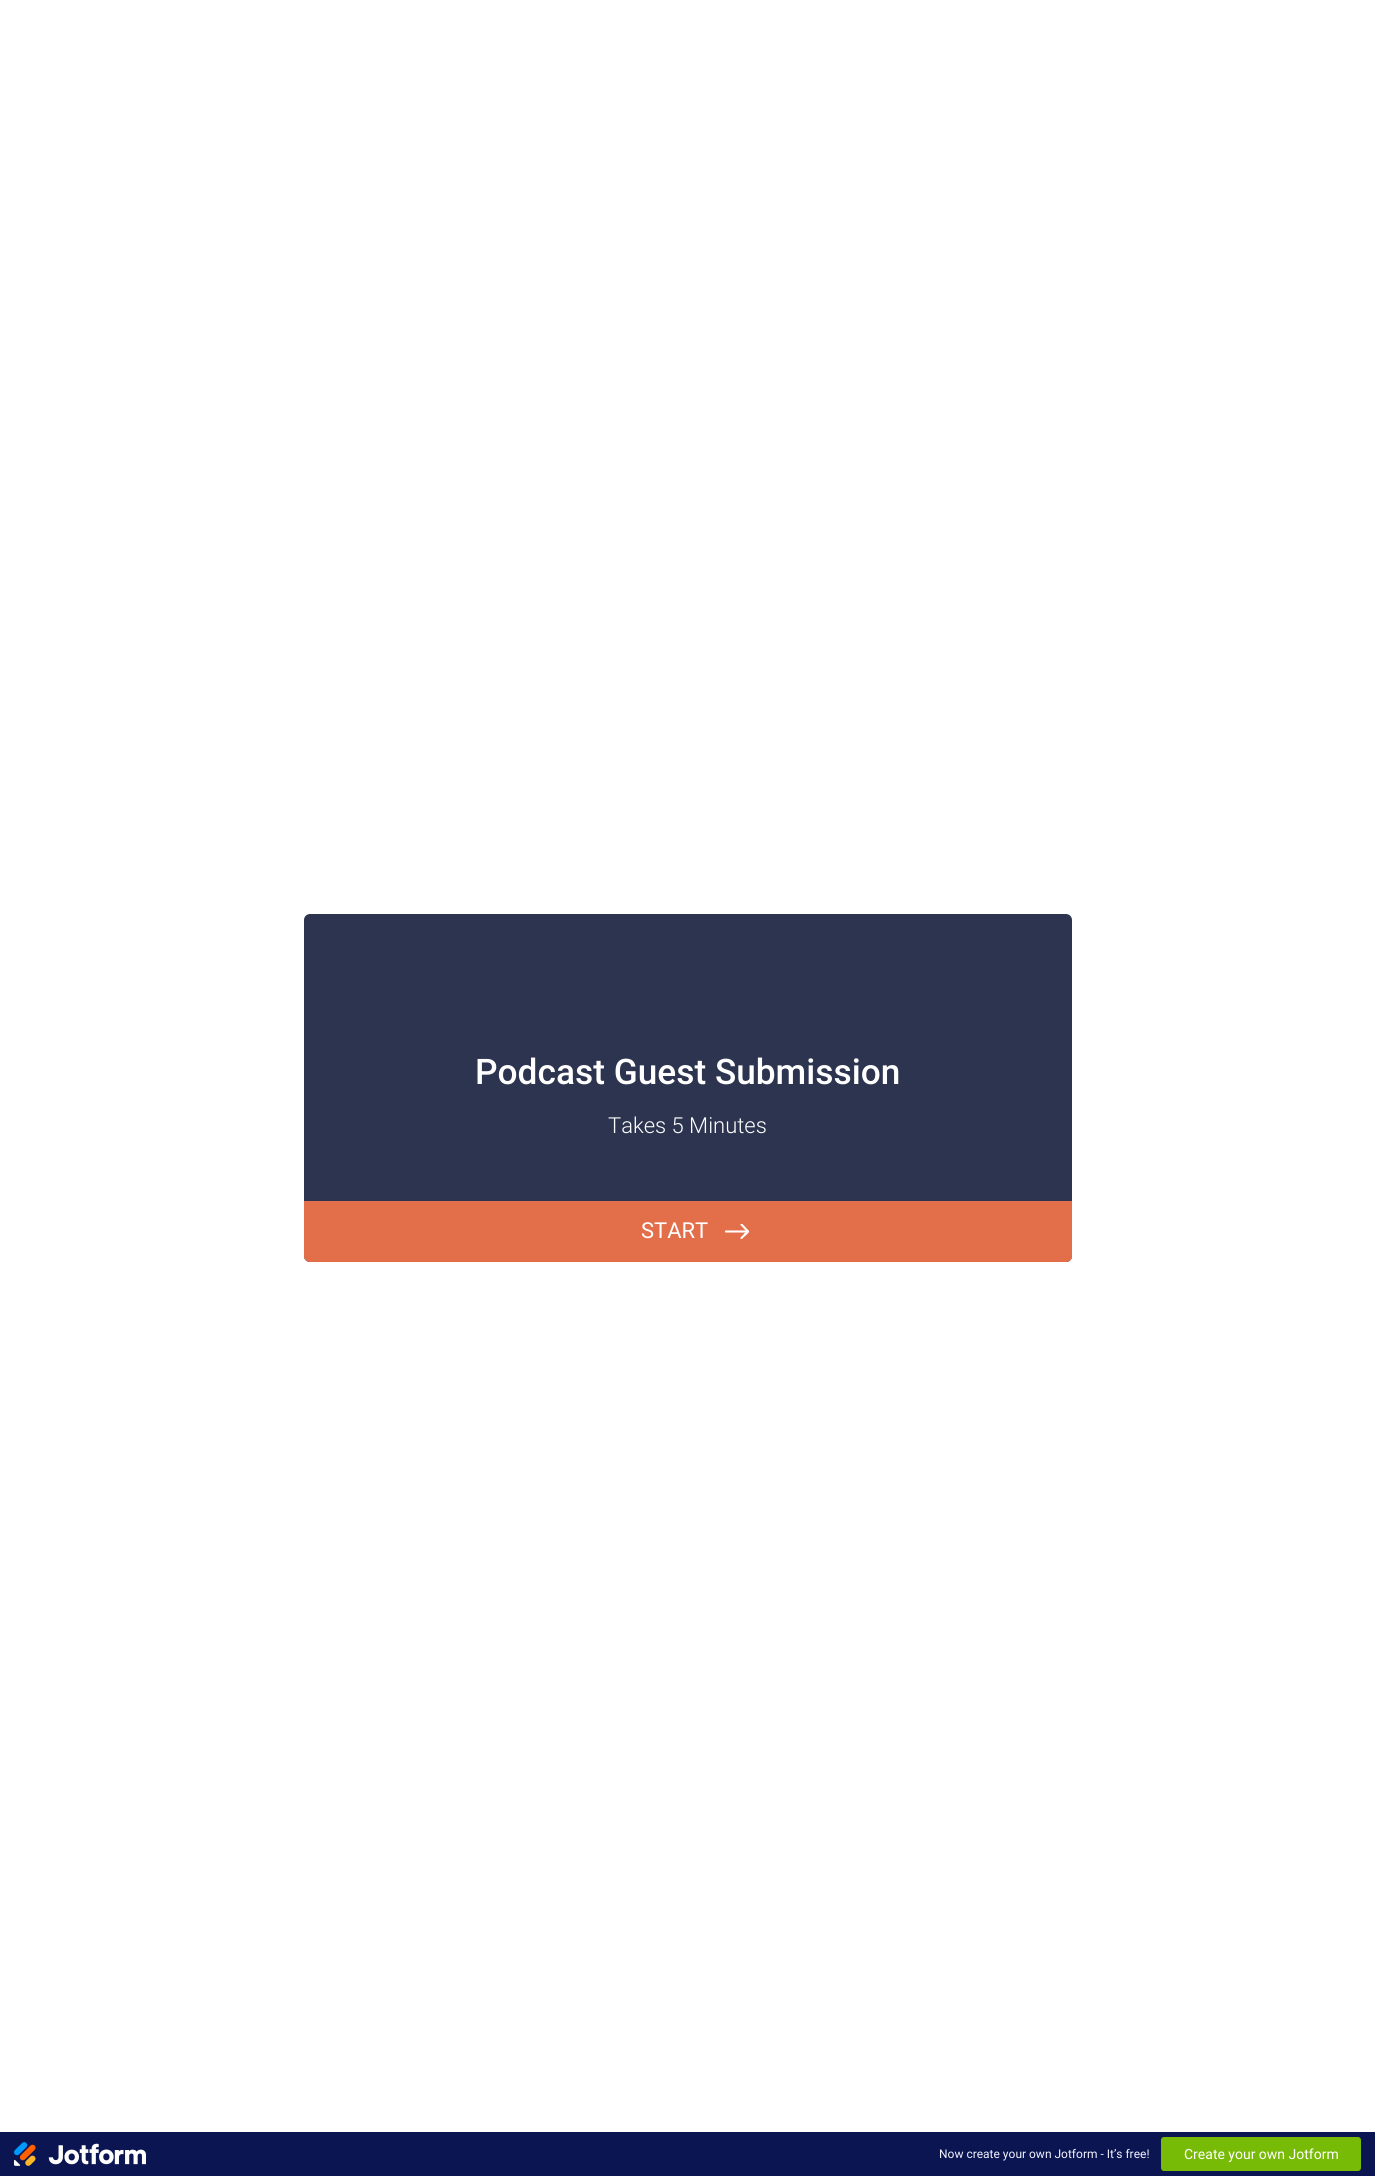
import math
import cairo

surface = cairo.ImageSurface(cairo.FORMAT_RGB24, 1375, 2176)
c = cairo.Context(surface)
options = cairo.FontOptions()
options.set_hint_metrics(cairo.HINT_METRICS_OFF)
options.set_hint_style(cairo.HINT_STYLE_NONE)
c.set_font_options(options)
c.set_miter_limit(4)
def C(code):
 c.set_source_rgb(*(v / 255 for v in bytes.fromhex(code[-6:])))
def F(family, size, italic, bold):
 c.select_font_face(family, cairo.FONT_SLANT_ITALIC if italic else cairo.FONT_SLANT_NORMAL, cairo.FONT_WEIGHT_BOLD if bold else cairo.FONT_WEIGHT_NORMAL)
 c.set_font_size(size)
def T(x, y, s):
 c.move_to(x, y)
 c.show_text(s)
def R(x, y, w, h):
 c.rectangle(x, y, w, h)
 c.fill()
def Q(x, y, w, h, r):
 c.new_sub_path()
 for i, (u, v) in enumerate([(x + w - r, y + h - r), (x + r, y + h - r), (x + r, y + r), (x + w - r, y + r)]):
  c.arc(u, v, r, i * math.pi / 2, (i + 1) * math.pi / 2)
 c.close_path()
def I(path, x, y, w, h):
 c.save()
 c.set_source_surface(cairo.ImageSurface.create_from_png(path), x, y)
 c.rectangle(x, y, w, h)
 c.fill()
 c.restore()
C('ffffff')
c.paint()
C('2d344f')
Q(304,914,768,348,6)
c.fill()
F('Roboto Medium',35.25,0,0)
C('ffffff')
T(475,1084,'Podcast Guest Submission')
F('Roboto Light',22,0,0)
T(608,1133,'Takes 5 Minutes')
C('e26f4a')
c.new_path()
c.move_to(304,1201)
c.line_to(1072,1201)
c.line_to(1072,1256)
c.curve_to(1072,1259.5,1069.5,1262,1066,1262)
c.line_to(310,1262)
c.curve_to(306.5,1262,304,1259.5,304,1256)
c.close_path()
c.fill()
F('Roboto',22,0,0)
C('ffffff')
T(641,1238,'START')
c.new_path()
c.move_to(726,1231.5)
c.line_to(748,1231.5)
c.line_to(741.5,1238)
c.set_line_width(2.1)
c.set_line_cap(cairo.LINE_CAP_ROUND)
c.set_line_join(cairo.LINE_JOIN_ROUND)
c.stroke()
c.save()
c.rectangle(724,1224,26,15)
c.clip()
c.new_path()
c.move_to(741.5,1224.5)
c.line_to(748,1231.5)
c.line_to(745,1234.5)
c.stroke()
c.restore()
C('0a1551')
R(0,2132,1375,44)
I('1.png',14,2142,132,24)
F('Roboto',12,0,0)
C('f3f3fe')
T(939,2158,'Now create your own Jotform - It’s free!')
C('78bb07')
Q(1161,2137,200,34,3)
c.fill()
F('Roboto',14,0,0)
C('ffffff')
T(1184,2159,'Create your own Jotform')
surface.write_to_png('o.png')
